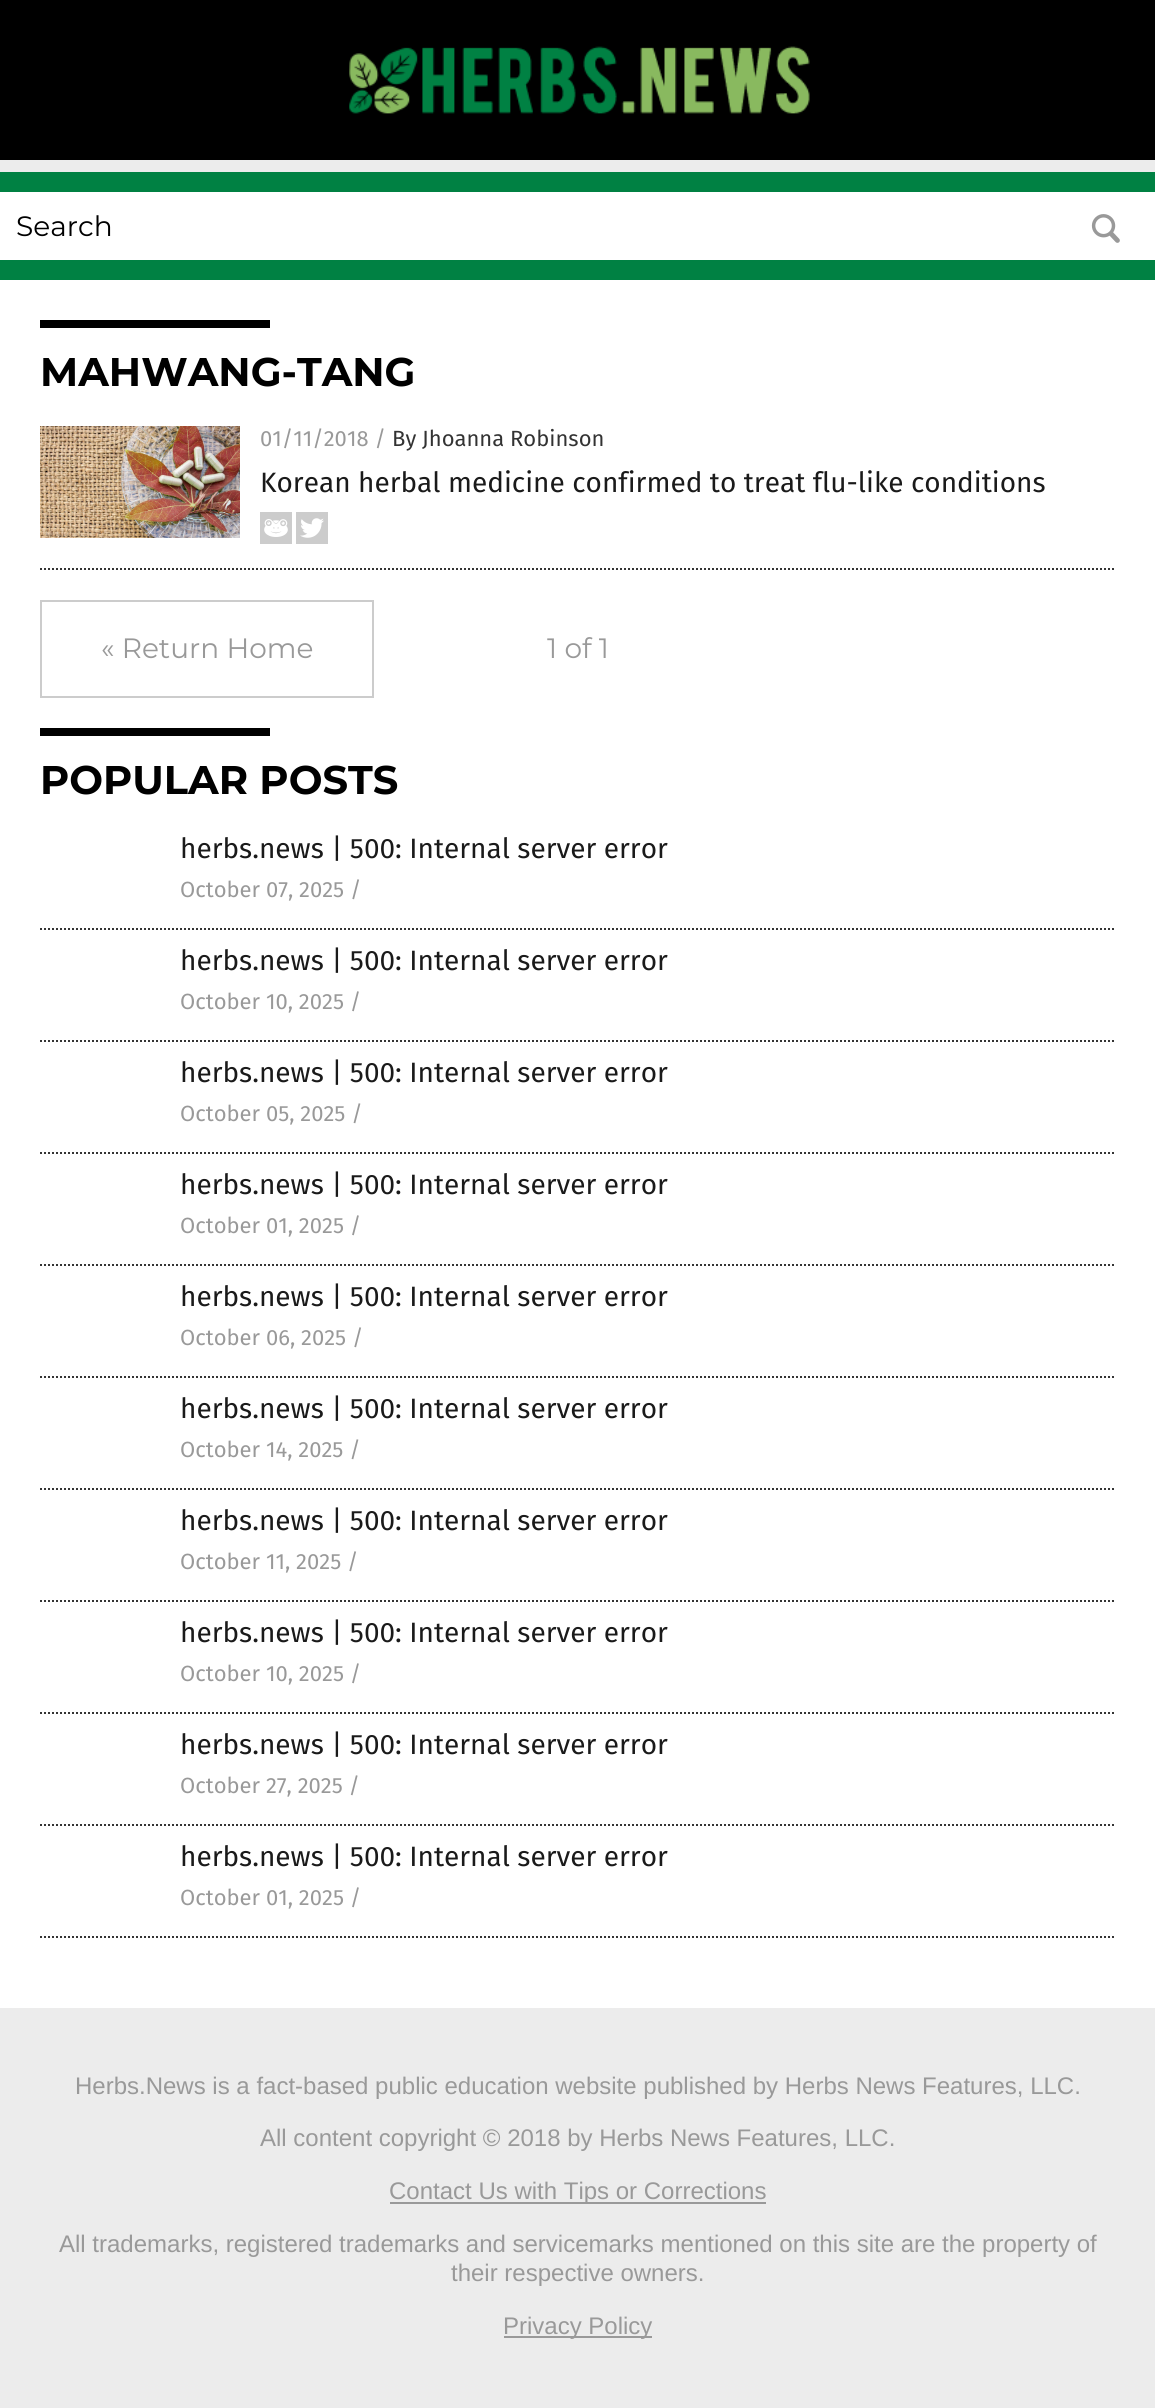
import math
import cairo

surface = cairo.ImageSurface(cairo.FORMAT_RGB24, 1155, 2408)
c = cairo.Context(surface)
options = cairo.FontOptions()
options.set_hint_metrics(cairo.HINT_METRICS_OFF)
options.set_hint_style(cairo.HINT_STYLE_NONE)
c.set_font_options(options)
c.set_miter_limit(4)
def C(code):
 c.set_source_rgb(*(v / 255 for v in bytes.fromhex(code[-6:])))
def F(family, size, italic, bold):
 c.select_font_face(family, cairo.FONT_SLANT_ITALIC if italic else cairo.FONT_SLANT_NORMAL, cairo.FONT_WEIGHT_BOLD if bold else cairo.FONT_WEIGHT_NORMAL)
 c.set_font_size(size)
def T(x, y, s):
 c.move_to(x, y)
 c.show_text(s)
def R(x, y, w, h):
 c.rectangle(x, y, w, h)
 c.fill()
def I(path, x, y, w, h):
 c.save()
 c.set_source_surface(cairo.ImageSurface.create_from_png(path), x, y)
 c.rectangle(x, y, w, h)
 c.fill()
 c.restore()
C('ececec')
c.paint()
C('008143')
R(0,172,1155,108)
C('000000')
R(0,0,1155,160)
I('1.png',349,46,461,68)
C('ffffff')
R(0,192,1155,68)
F('Montserrat',28,0,0)
C('000000')
T(16,236,'Search')
I('2.png',1091,214,29,29)
C('ffffff')
R(0,280,1155,1728)
C('000000')
R(40,320,230,8)
F('Montserrat',40,0,1)
T(40,386,'MAHWANG-TANG')
c.new_path()
c.move_to(40,569)
c.line_to(1116,569)
C('343434')
c.set_dash([2,2])
c.stroke()
I('3.png',40,426,200,112)
F('Fira Sans',22,0,0)
C('999999')
T(260,446,'01/11/2018 /')
C('333333')
T(392,446,'By Jhoanna Robinson')
F('Fira Sans',28,0,0)
C('1a1a1a')
T(260,492,'Korean herbal medicine confirmed to treat flu-like conditions')
I('4.png',260,512,32,32)
I('5.png',296,512,32,32)
c.rectangle(41,601,332,96)
C('cccccc')
c.set_dash([])
c.stroke()
F('Montserrat',28,0,0)
C('999999')
T(101,658,'« Return Home')
T(547,658,'1 of 1')
C('000000')
R(40,728,230,8)
F('Montserrat',40,0,1)
T(40,794,'POPULAR POSTS')
c.new_path()
c.move_to(40,929)
c.line_to(1116,929)
C('343434')
c.set_dash([2,2])
c.stroke()
F('Fira Sans',28,0,0)
C('1a1a1a')
T(180,858,'herbs.news | 500: Internal server error')
F('Fira Sans',22,0,0)
C('999999')
T(180,897,'October 07, 2025 /')
c.new_path()
c.move_to(40,1041)
c.line_to(1116,1041)
C('343434')
c.stroke()
F('Fira Sans',28,0,0)
C('1a1a1a')
T(180,970,'herbs.news | 500: Internal server error')
F('Fira Sans',22,0,0)
C('999999')
T(180,1009,'October 10, 2025 /')
c.new_path()
c.move_to(40,1153)
c.line_to(1116,1153)
C('343434')
c.stroke()
F('Fira Sans',28,0,0)
C('1a1a1a')
T(180,1082,'herbs.news | 500: Internal server error')
F('Fira Sans',22,0,0)
C('999999')
T(180,1121,'October 05, 2025 /')
c.new_path()
c.move_to(40,1265)
c.line_to(1116,1265)
C('343434')
c.stroke()
F('Fira Sans',28,0,0)
C('1a1a1a')
T(180,1194,'herbs.news | 500: Internal server error')
F('Fira Sans',22,0,0)
C('999999')
T(180,1233,'October 01, 2025 /')
c.new_path()
c.move_to(40,1377)
c.line_to(1116,1377)
C('343434')
c.stroke()
F('Fira Sans',28,0,0)
C('1a1a1a')
T(180,1306,'herbs.news | 500: Internal server error')
F('Fira Sans',22,0,0)
C('999999')
T(180,1345,'October 06, 2025 /')
c.new_path()
c.move_to(40,1489)
c.line_to(1116,1489)
C('343434')
c.stroke()
F('Fira Sans',28,0,0)
C('1a1a1a')
T(180,1418,'herbs.news | 500: Internal server error')
F('Fira Sans',22,0,0)
C('999999')
T(180,1457,'October 14, 2025 /')
c.new_path()
c.move_to(40,1601)
c.line_to(1116,1601)
C('343434')
c.stroke()
F('Fira Sans',28,0,0)
C('1a1a1a')
T(180,1530,'herbs.news | 500: Internal server error')
F('Fira Sans',22,0,0)
C('999999')
T(180,1569,'October 11, 2025 /')
c.new_path()
c.move_to(40,1713)
c.line_to(1116,1713)
C('343434')
c.stroke()
F('Fira Sans',28,0,0)
C('1a1a1a')
T(180,1642,'herbs.news | 500: Internal server error')
F('Fira Sans',22,0,0)
C('999999')
T(180,1681,'October 10, 2025 /')
c.new_path()
c.move_to(40,1825)
c.line_to(1116,1825)
C('343434')
c.stroke()
F('Fira Sans',28,0,0)
C('1a1a1a')
T(180,1754,'herbs.news | 500: Internal server error')
F('Fira Sans',22,0,0)
C('999999')
T(180,1793,'October 27, 2025 /')
c.new_path()
c.move_to(40,1937)
c.line_to(1116,1937)
C('343434')
c.stroke()
F('Fira Sans',28,0,0)
C('1a1a1a')
T(180,1866,'herbs.news | 500: Internal server error')
F('Fira Sans',22,0,0)
C('999999')
T(180,1905,'October 01, 2025 /')
F('Liberation Sans',24,0,0)
T(75,2094,'Herbs.News is a fact-based public education website published by Herbs News Features, LLC.')
T(260,2146,'All content copyright © 2018 by Herbs News Features, LLC.')
R(390,2202,376,2)
T(389,2199,'Contact Us with Tips or Corrections')
T(59,2252,'All trademarks, registered trademarks and servicemarks mentioned on this site are the property of')
T(451,2281,'their respective owners.')
R(504,2336,148,2)
T(503,2334,'Privacy Policy')
surface.write_to_png('o.png')
